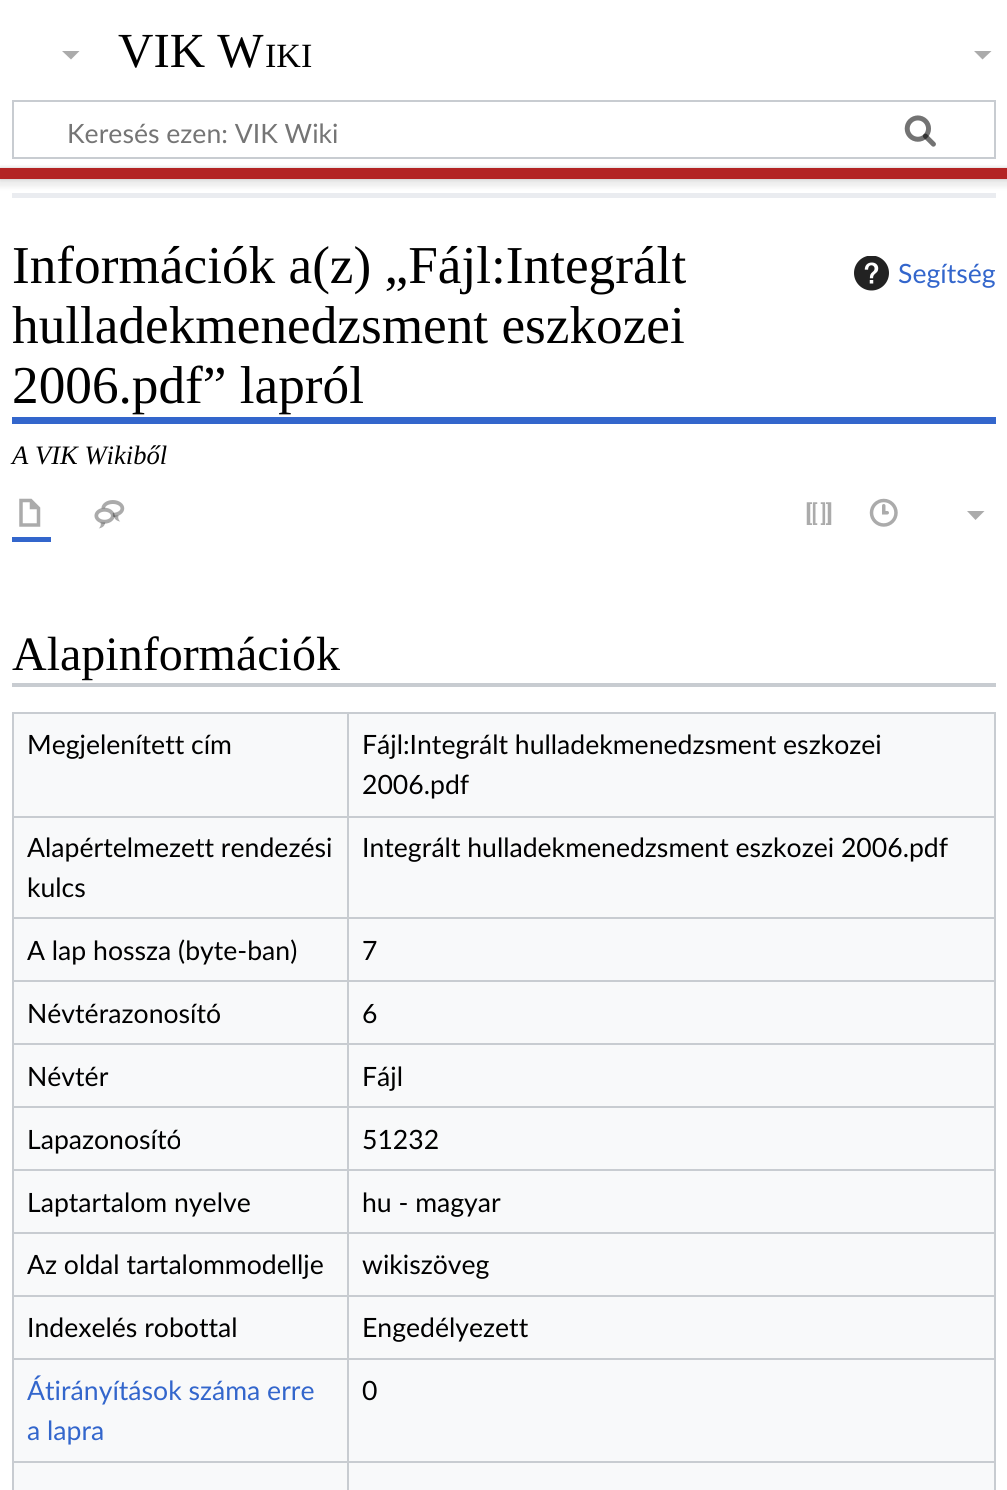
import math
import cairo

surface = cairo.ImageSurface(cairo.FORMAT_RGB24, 1007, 1490)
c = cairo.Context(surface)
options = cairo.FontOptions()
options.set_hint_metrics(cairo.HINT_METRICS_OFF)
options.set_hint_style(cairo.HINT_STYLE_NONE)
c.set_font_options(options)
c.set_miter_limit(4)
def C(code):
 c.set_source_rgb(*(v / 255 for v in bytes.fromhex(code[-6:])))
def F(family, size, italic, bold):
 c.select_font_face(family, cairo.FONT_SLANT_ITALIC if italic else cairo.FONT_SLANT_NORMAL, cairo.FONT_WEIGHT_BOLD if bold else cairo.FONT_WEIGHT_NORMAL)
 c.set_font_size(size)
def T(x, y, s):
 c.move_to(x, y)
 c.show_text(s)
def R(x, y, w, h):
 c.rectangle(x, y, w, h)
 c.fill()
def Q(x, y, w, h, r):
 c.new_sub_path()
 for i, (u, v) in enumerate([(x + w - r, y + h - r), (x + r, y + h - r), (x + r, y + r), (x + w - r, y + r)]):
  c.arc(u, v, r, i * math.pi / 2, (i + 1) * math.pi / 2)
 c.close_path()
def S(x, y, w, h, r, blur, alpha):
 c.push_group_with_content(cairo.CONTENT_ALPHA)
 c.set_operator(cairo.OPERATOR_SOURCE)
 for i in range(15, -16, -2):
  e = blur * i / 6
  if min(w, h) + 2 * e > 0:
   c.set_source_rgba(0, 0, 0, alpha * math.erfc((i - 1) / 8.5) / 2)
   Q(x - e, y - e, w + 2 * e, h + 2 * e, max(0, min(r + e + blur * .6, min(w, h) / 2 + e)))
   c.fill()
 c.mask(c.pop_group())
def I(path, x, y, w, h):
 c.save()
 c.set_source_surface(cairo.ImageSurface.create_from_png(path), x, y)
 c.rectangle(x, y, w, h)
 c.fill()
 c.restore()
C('ffffff')
c.paint()
F('Liberation Serif',49,0,0)
C('000000')
T(118,67,'VIK W')
F('Liberation Serif',34,0,0)
T(265,67,'IKI')
C('ababab')
c.new_path()
c.move_to(991.5,51)
c.line_to(982.5,59.5)
c.line_to(974,51)
c.close_path()
c.fill()
c.rectangle(13,101,982,57)
C('c8ccd1')
c.stroke()
I('1.png',904,115,32,32)
F('Lato',26.6,0,0)
C('757575')
T(67,143,'Keresés ezen: VIK Wiki')
I('2.png',904,115,32,32)
C('000000')
S(0,168,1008,11,0,2,.2)
C('eaecf0')
R(12,193,984,1)
R(994,193,2,5)
R(12,194,984,4)
C('000000')
S(-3,170,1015,17,0,2.5,.07)
C('b32424')
R(0,168,1007,11)
C('ababab')
c.new_path()
c.move_to(79.5,51)
c.line_to(71,59.5)
c.line_to(62,51)
c.close_path()
c.fill()
C('3366cc')
R(12,417,984,7)
F('Liberation Serif',53.25,0,0)
C('000000')
T(12,283,'Információk a(z) „Fájl:Integrált')
T(12,343,'hulladekmenedzsment eszkozei')
T(12,403,'2006.pdf” lapról')
I('3.png',854,256,35,35)
F('Lato',26.6,0,0)
C('3366cc')
T(898,283,'Segítség')
F('Liberation Serif',26.6,1,0)
C('000000')
T(12,464,'A VIK Wikiből')
C('3366cc')
R(12,537,39,5)
I('4.png',19,498,22,29)
I('5.png',94,500,31,29)
I('6.png',806,502,26,23)
I('7.png',869,498,29,29)
C('ababab')
c.new_path()
c.move_to(984.5,511)
c.line_to(975.5,520)
c.line_to(967,511)
c.close_path()
c.fill()
C('c8ccd1')
R(12,683,984,4)
F('Liberation Serif',48,0,0)
C('000000')
T(12,670,'Alapinformációk')
C('f8f9fa')
R(14,714,980,776)
C('c8ccd1')
R(12,712,984,2)
R(994,712,2,778)
R(12,712,2,778)
F('Lato',26.6,0,0)
C('000000')
T(27,754,'Megjelenített cím')
C('c8ccd1')
R(347,816,649,2)
R(347,917,649,2)
R(347,980,649,2)
R(347,1043,649,2)
R(347,1106,649,2)
R(347,1169,649,2)
R(347,1232,649,2)
R(347,1295,649,2)
R(347,1358,649,2)
R(347,1461,649,2)
R(347,1461,2,29)
R(12,1461,336,2)
R(347,1358,2,105)
R(12,1358,336,2)
R(347,1295,2,65)
R(12,1295,336,2)
R(347,1232,2,65)
R(12,1232,336,2)
R(347,1169,2,65)
R(12,1169,336,2)
R(347,1106,2,65)
R(12,1106,336,2)
R(347,1043,2,65)
R(12,1043,336,2)
R(347,980,2,65)
R(12,980,336,2)
R(347,917,2,65)
R(12,917,336,2)
R(347,816,2,103)
R(12,816,336,2)
R(347,712,2,105)
C('000000')
T(362,754,'Fájl:Integrált hulladekmenedzsment eszkozei')
T(362,794,'2006.pdf')
T(27,857,'Alapértelmezett rendezési')
T(27,897,'kulcs')
T(362,857,'Integrált hulladekmenedzsment eszkozei 2006.pdf')
T(27,960,'A lap hossza (byte-ban)')
T(362,960,'7')
T(27,1023,'Névtérazonosító')
T(362,1023,'6')
T(27,1086,'Névtér')
T(362,1086,'Fájl')
T(27,1149,'Lapazonosító')
T(362,1149,'51232')
T(27,1212,'Laptartalom nyelve')
T(362,1212,'hu - magyar')
T(27,1274,'Az oldal tartalommodellje')
T(362,1274,'wikiszöveg')
T(27,1337,'Indexelés robottal')
T(362,1337,'Engedélyezett')
C('3366cc')
T(27,1400,'Átirányítások száma erre')
T(27,1440,'a lapra')
C('000000')
T(362,1400,'0')
surface.write_to_png('o.png')
